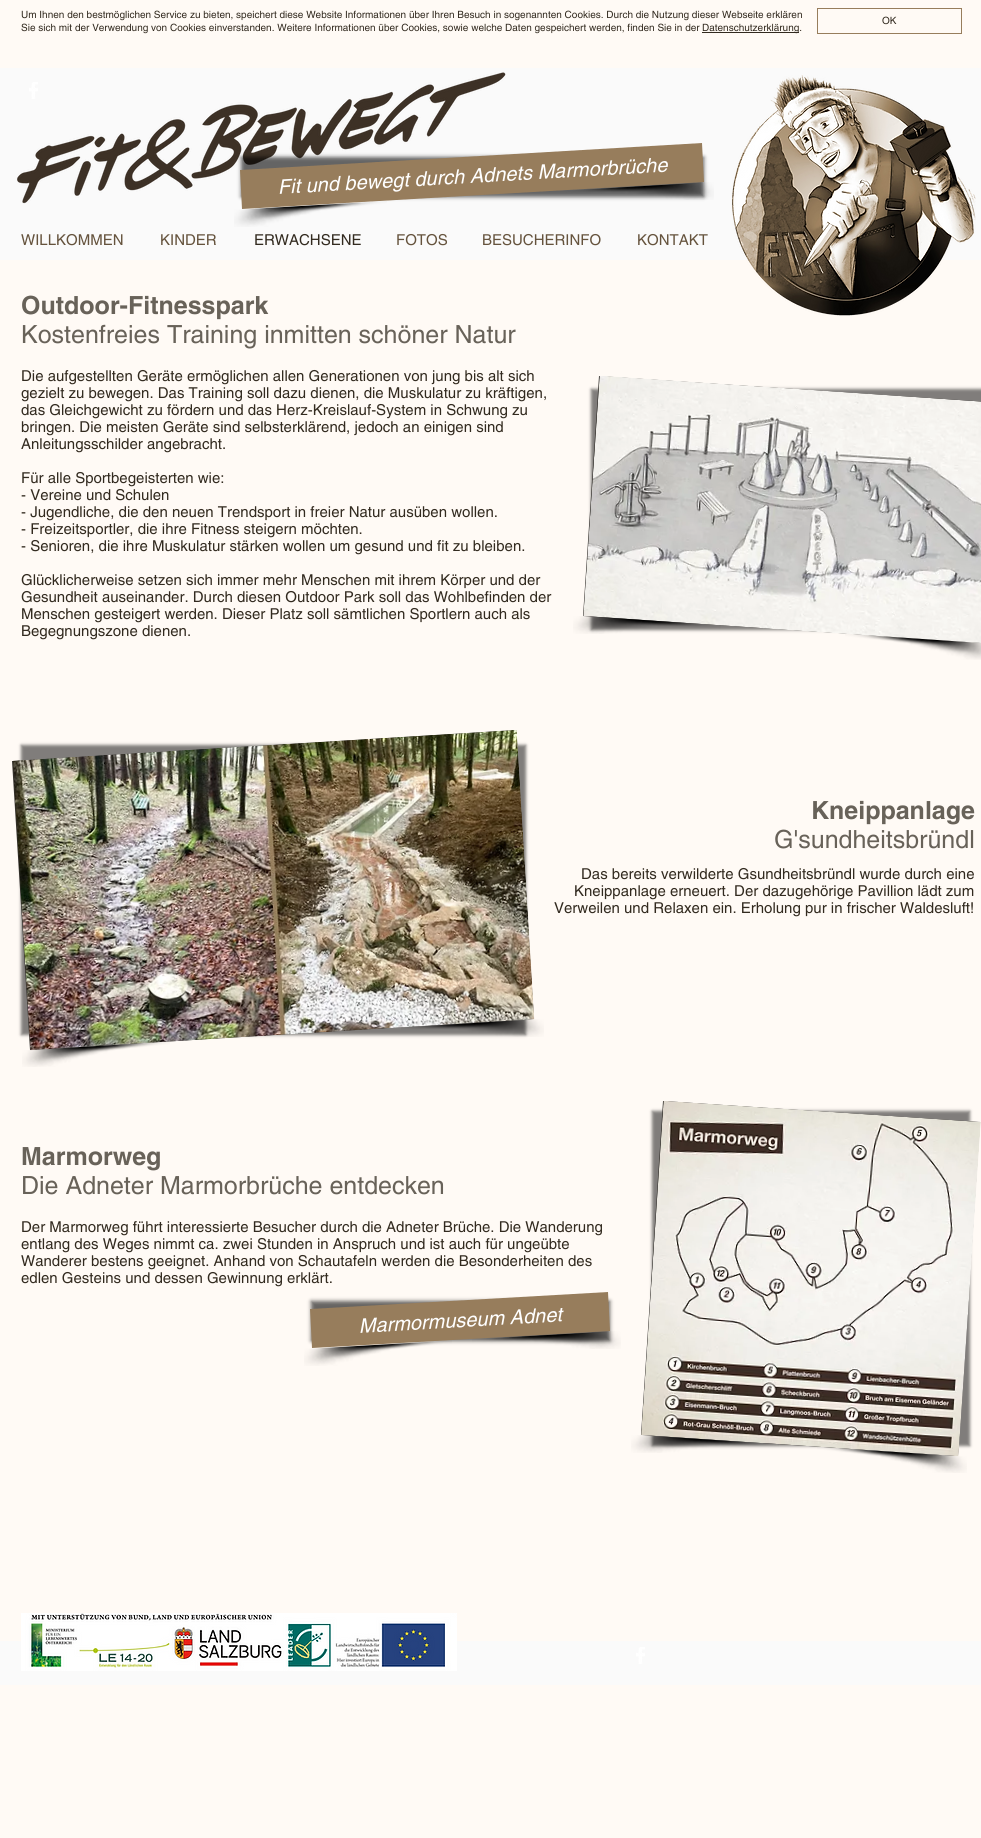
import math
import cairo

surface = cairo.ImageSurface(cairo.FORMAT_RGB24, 981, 1838)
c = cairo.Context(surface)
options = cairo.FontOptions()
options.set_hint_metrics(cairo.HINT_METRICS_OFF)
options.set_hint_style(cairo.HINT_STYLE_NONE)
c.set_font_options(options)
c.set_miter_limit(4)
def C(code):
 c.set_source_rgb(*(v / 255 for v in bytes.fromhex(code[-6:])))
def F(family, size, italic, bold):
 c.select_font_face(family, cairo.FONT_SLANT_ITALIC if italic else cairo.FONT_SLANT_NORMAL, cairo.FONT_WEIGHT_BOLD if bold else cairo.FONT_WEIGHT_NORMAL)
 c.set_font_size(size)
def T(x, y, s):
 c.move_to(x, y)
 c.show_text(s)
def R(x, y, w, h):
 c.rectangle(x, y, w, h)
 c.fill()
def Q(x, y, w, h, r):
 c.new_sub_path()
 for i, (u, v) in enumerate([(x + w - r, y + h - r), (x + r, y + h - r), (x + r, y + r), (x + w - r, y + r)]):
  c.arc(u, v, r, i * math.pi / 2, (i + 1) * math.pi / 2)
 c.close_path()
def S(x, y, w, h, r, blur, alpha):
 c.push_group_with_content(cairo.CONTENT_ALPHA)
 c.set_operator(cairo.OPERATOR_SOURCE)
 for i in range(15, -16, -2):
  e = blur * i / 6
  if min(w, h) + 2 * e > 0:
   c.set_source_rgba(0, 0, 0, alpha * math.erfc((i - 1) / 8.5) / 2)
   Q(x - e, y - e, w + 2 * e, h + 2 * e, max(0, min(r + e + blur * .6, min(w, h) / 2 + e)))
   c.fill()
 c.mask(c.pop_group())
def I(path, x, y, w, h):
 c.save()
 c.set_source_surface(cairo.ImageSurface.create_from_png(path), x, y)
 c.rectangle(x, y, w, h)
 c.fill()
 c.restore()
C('fffaf5')
c.paint()
F('helvetica',10,0,0)
C('322a1f')
T(21,18,'Um Ihnen den bestmöglichen Service zu bieten, speichert diese Website Informationen über Ihren Besuch in sogenannten Cookies. Durch die Nutzung dieser Webseite erklären')
T(21,31,'Sie sich mit der Verwendung von Cookies einverstanden. Weitere Informationen über Cookies, sowie welche Daten gespeichert werden, finden Sie in der')
R(702,32,97,1)
T(702,31,'Datenschutzerklärung.')
c.rectangle(817.5,8.5,144,25)
C('977d5c')
c.set_line_width(1)
c.stroke()
C('322a1f')
T(882,24,'OK')
C('fafafa')
R(0,68,981,192)
I('1.png',17,72,489,132)
I('2.png',732,75,244,241)
I('3.png',29,82,9,17)
I('4.png',560,182,154,18)
I('5.png',234,201,153,26)
C('000000')
S(241,157,463,40,0,2,.6)
C('977d5c')
c.new_path()
c.move_to(240,170)
c.line_to(702,143)
c.line_to(704,182)
c.line_to(242,209)
c.close_path()
c.fill()
F('helvetica',20,1,0)
C('ffffff')
c.save()
c.translate(278,194)
c.rotate(-3.3 * math.pi / 180)
T(0,0,'Fit und bewegt durch Adnets Marmorbrüche')
c.restore()
F('helvetica',15,0,0)
C('65533d')
T(21,245,'WILLKOMMEN')
T(160,245,'KINDER')
C('322a1f')
T(254,245,'ERWACHSENE')
C('65533d')
T(396,245,'FOTOS')
T(482,245,'BESUCHERINFO')
T(637,245,'KONTAKT')
F('helvetica',25,0,1)
C('686259')
T(21,314,'Outdoor-Fitnesspark')
F('helvetica',25,0,0)
T(21,343,'Kostenfreies Training inmitten schöner Natur')
F('helvetica',15,0,0)
C('322a1f')
T(21,381,'Die aufgestellten Geräte ermöglichen allen Generationen von jung bis alt sich')
T(21,398,'gezielt zu bewegen. Das Training soll dazu dienen, die Muskulatur zu kräftigen,')
T(21,415,'das Gleichgewicht zu fördern und das Herz-Kreislauf-System in Schwung zu')
T(21,432,'bringen. Die meisten Geräte sind selbsterklärend, jedoch an einigen sind')
T(21,449,'Anleitungsschilder angebracht.')
T(21,483,'Für alle Sportbegeisterten wie:')
T(21,500,'- Vereine und Schulen')
T(21,517,'- Jugendliche, die den neuen Trendsport in freier Natur ausüben wollen.')
T(21,534,'- Freizeitsportler, die ihre Fitness steigern möchten.')
T(21,551,'- Senioren, die ihre Muskulatur stärken wollen um gesund und fit zu bleiben.')
T(21,585,'Glücklicherweise setzen sich immer mehr Menschen mit ihrem Körper und der')
T(21,602,'Gesundheit auseinander. Durch diesen Outdoor Park soll das Wohlbefinden der')
T(21,619,'Menschen gesteigert werden. Dieser Platz soll sämtlichen Sportlern auch als')
T(21,636,'Begegnungszone dienen.')
C('000000')
S(591,389,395,241,0,1.5,.5)
C('34312d')
c.new_path()
c.move_to(599,376)
c.line_to(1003,403)
c.line_to(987,643)
c.line_to(583,616)
c.close_path()
c.fill()
I('6.png',583,376,398,267)
I('7.png',573,616,148,18)
I('8.png',845,634,136,26)
C('000000')
S(21,745,505,290,0,1.5,.5)
C('34312d')
c.new_path()
c.move_to(12,761)
c.line_to(516,730)
c.line_to(534,1019)
c.line_to(30,1050)
c.close_path()
c.fill()
I('9.png',13,730,522,321)
I('10.png',401,1019,143,18)
I('11.png',22,1042,148,25)
F('helvetica',25,0,1)
C('686259')
T(811,819,'Kneippanlage')
F('helvetica',25,0,0)
T(774,848,'G\'sundheitsbründl')
F('helvetica',15,0,0)
C('322a1f')
T(581,879,'Das bereits verwilderte Gsundheitsbründl wurde durch eine')
T(574,896,'Kneippanlage erneuert. Der dazugehörige Pavillion lädt zum')
T(554,913,'Verweilen und Relaxen ein. Erholung pur in frischer Waldesluft!')
F('helvetica',25,0,1)
C('686259')
T(21,1165,'Marmorweg')
F('helvetica',25,0,0)
T(21,1194,'Die Adneter Marmorbrüche entdecken')
C('000000')
S(652,1111,318,335,0,1.5,.5)
C('34312d')
c.new_path()
c.move_to(663,1101)
c.line_to(980,1122)
c.line_to(958,1456)
c.line_to(641,1435)
c.close_path()
c.fill()
I('12.png',641,1101,340,355)
I('13.png',631,1435,148,18)
I('14.png',817,1447,150,26)
F('helvetica',15,0,0)
C('322a1f')
T(21,1232,'Der Marmorweg führt interessierte Besucher durch die Adneter Brüche. Die Wanderung')
T(21,1249,'entlang des Weges nimmt ca. zwei Stunden in Anspruch und ist auch für ungeübte')
T(21,1266,'Wanderer bestens geeignet. Anhand von Schautafeln werden die Besonderheiten des')
T(21,1283,'edlen Gesteins und dessen Gewinnung erklärt.')
I('15.png',304,1341,148,25)
I('16.png',472,1331,149,18)
C('000000')
S(311,1301,299,40,0,2,.6)
C('977d5c')
c.new_path()
c.move_to(310,1309)
c.line_to(608,1292)
c.line_to(610,1331)
c.line_to(312,1348)
c.close_path()
c.fill()
F('helvetica',20,1,0)
C('ffffff')
c.save()
c.translate(359,1333)
c.rotate(-3.3 * math.pi / 180)
T(0,0,'Marmormuseum Adnet')
c.restore()
C('fafafa')
R(0,1641,981,44)
I('17.png',21,1613,436,58)
I('3.png',636,1647,9,17)
surface.write_to_png('o.png')
